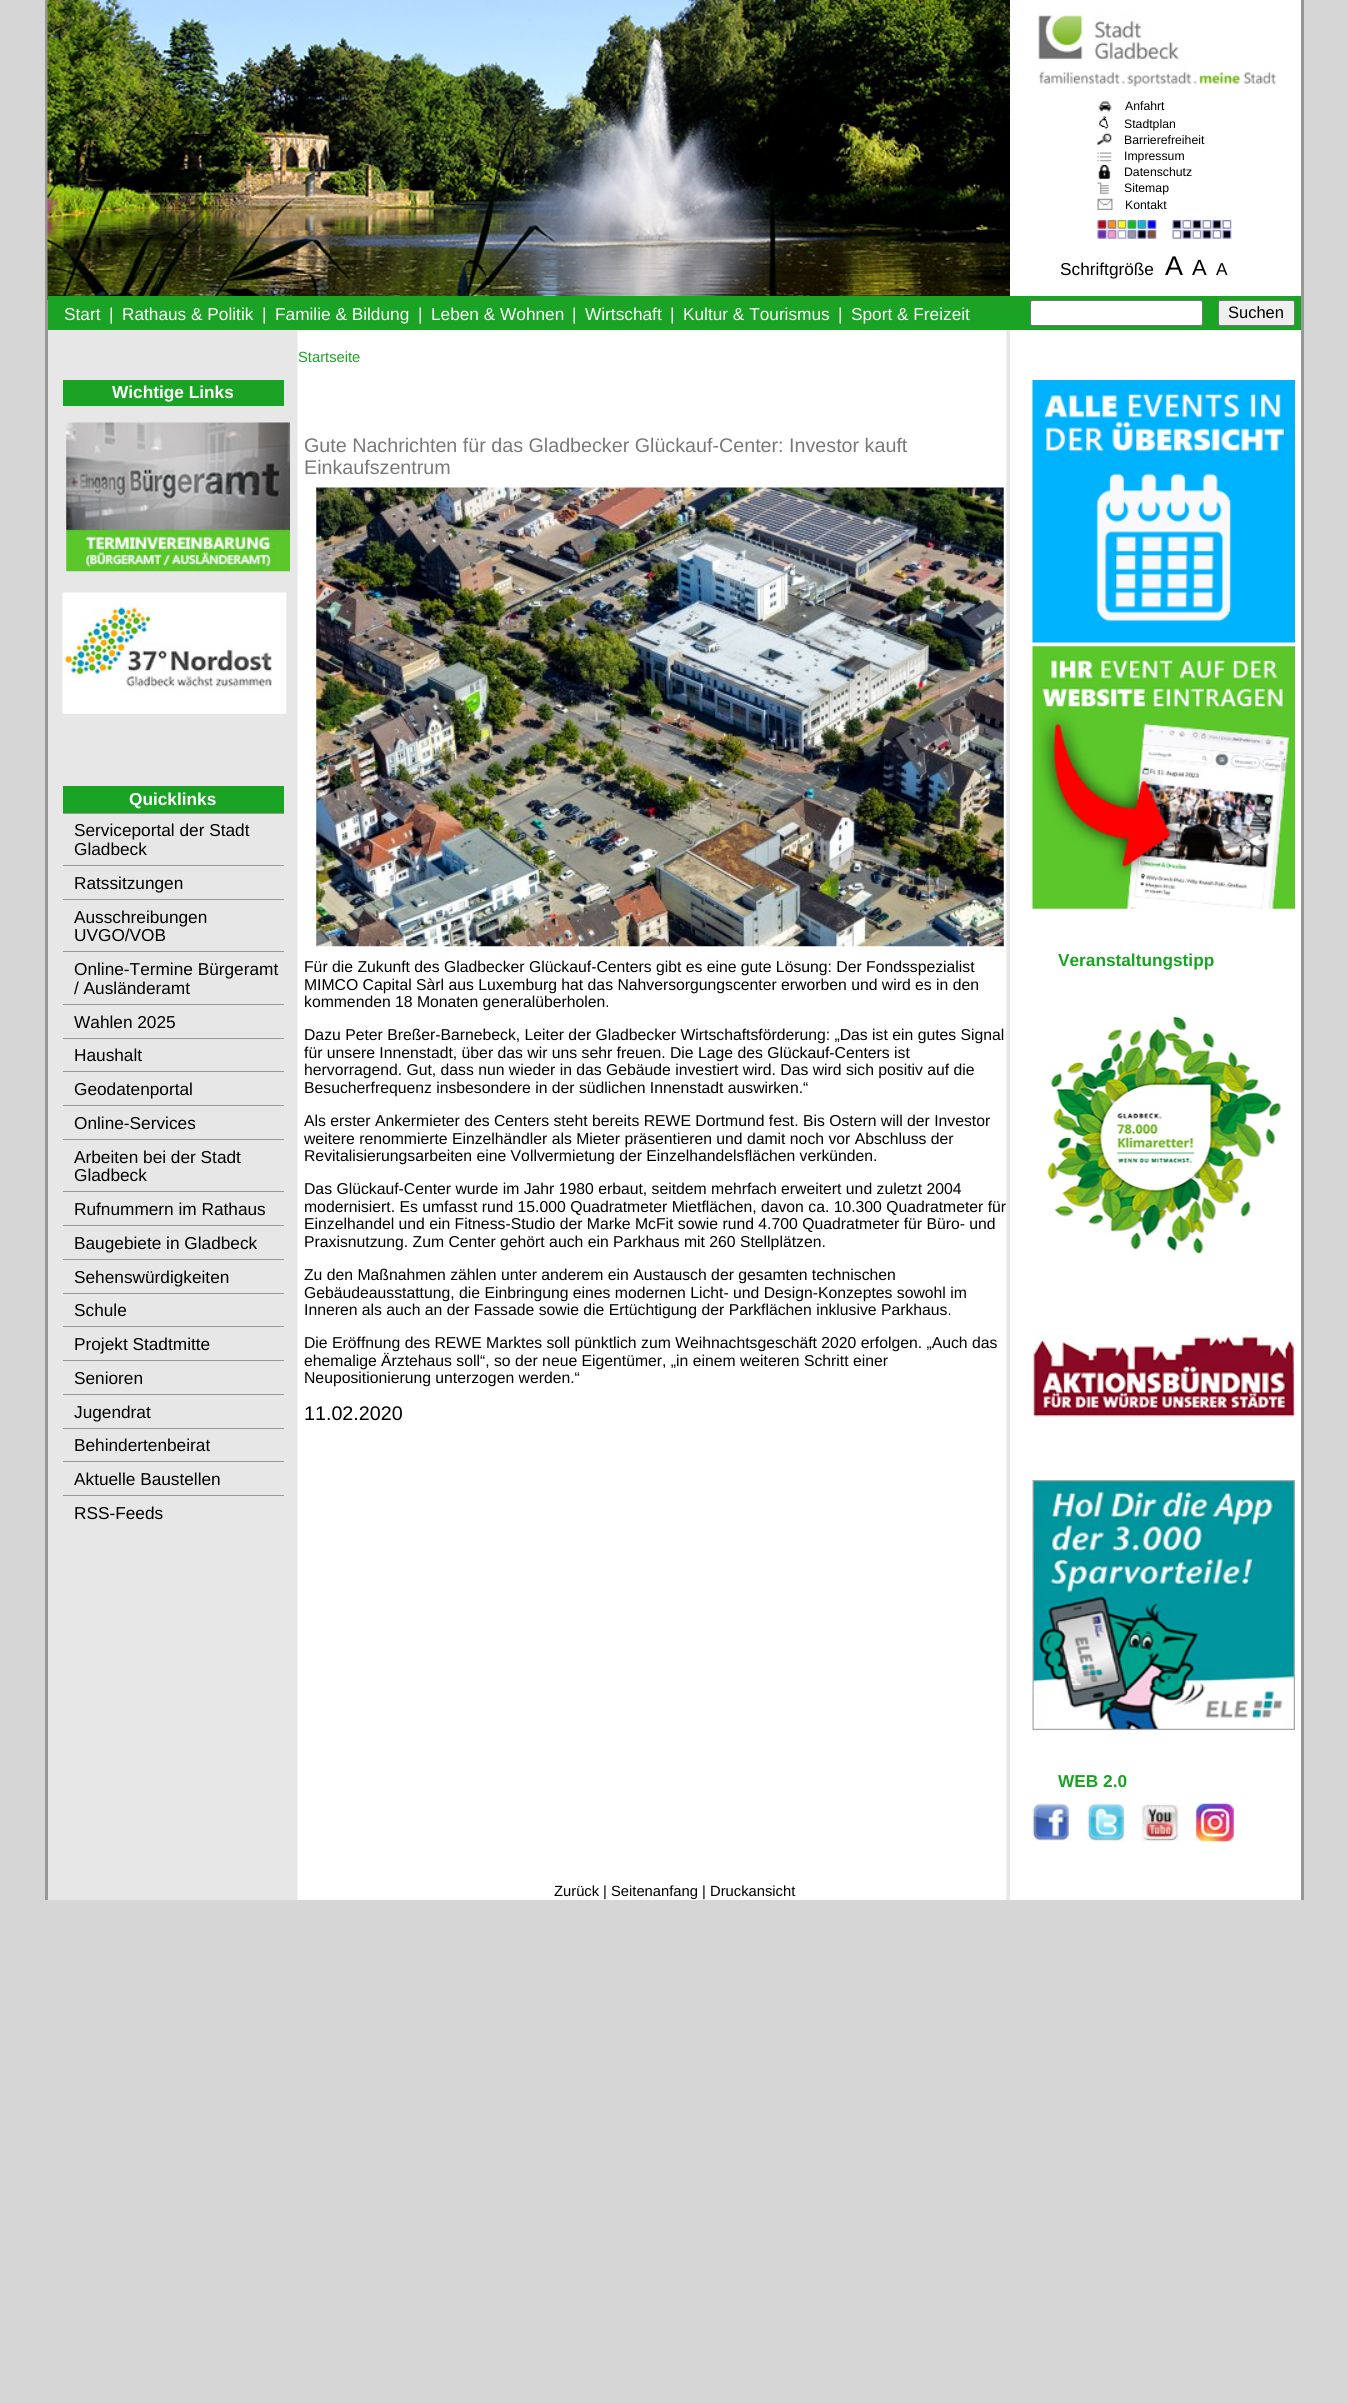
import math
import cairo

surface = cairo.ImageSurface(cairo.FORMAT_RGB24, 1348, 2403)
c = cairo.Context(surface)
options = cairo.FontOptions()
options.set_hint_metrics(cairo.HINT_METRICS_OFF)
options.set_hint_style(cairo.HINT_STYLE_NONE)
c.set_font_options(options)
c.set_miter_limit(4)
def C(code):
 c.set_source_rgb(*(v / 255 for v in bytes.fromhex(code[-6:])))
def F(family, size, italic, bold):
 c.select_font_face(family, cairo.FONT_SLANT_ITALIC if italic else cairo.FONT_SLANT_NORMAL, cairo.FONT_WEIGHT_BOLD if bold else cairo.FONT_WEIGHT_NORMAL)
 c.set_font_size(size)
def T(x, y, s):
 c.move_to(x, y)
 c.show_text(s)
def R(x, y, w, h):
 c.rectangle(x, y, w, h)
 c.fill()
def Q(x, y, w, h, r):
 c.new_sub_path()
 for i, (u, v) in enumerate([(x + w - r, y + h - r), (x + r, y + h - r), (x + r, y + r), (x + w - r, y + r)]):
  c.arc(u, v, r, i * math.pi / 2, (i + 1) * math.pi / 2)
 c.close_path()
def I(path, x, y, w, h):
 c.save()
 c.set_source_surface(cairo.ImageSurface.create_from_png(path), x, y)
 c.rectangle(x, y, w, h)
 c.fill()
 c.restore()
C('d6d6d6')
c.paint()
I('1.png',48,330,1253,1570)
C('979795')
R(1301,0,3,1900)
R(45,0,3,1900)
C('ffffff')
R(1010,0,291,296)
I('2.png',47,0,963,300)
I('3.png',1038,12,239,75)
I('4.png',1097,99,15,13)
F('Liberation Sans',12.25,0,0)
C('000000')
T(1125,110,'Anfahrt')
I('5.png',1099,116,10,13)
T(1124,128,'Stadtplan')
I('6.png',1097,133,15,12)
T(1124,144,'Barrierefreiheit')
I('7.png',1097,152,15,10)
T(1124,160,'Impressum')
I('8.png',1098,165,13,14)
T(1124,176,'Datenschutz')
I('9.png',1097,182,12,12)
T(1124,192,'Sitemap')
I('10.png',1097,198,16,12)
T(1125,209,'Kontakt')
I('11.png',1097,220,60,19)
I('12.png',1172,220,60,19)
F('Liberation Sans',17.25,0,0)
T(1060,275,'Schriftgröße')
F('Liberation Sans',27,0,0)
T(1165,275,'A')
F('Liberation Sans',22,0,0)
T(1192,275,'A')
F('Liberation Sans',17.25,0,0)
T(1216,275,'A')
C('1aa324')
R(48,296,1253,34)
C('ffffff')
T(64,320,'Start')
T(109,320,'|')
T(122,320,'Rathaus & Politik')
T(262,320,'|')
T(275,320,'Familie & Bildung')
T(418,320,'|')
T(431,320,'Leben & Wohnen')
T(572,320,'|')
T(585,320,'Wirtschaft')
T(670,320,'|')
T(683,320,'Kultur & Tourismus')
T(838,320,'|')
T(851,320,'Sport & Freizeit')
Q(1030.5,300.5,172,25,2)
c.fill_preserve()
C('767676')
c.set_line_width(1)
c.stroke()
C('efefef')
Q(1218.5,300.5,76,25,2)
c.fill_preserve()
C('767676')
c.stroke()
F('Liberation Sans',16.5,0,0)
C('000000')
T(1228,318,'Suchen')
F('Liberation Sans',14.75,0,0)
C('1aa324')
T(298,362,'Startseite')
R(63,380,221,26)
F('Liberation Sans',17.25,0,1)
C('ffffff')
T(112,398,'Wichtige Links')
I('13.png',66,422,224,150)
I('14.png',62,592,225,122)
C('1aa324')
R(63,786,221,27)
C('ffffff')
T(129,805,'Quicklinks')
C('979795')
R(63,813,221,1)
F('Liberation Sans',17.25,0,0)
C('000000')
T(74,836,'Serviceportal der Stadt')
T(74,855,'Gladbeck')
C('979795')
R(63,865,221,1)
C('000000')
T(74,889,'Ratssitzungen')
C('979795')
R(63,899,221,1)
C('000000')
T(74,923,'Ausschreibungen')
T(74,941,'UVGO/VOB')
C('979795')
R(63,951,221,1)
C('000000')
T(74,975,'Online-Termine Bürgeramt')
T(74,994,'/ Ausländeramt')
C('979795')
R(63,1004,221,1)
C('000000')
T(74,1028,'Wahlen 2025')
C('979795')
R(63,1038,221,1)
C('000000')
T(74,1061,'Haushalt')
C('979795')
R(63,1071,221,1)
C('000000')
T(74,1095,'Geodatenportal')
C('979795')
R(63,1105,221,1)
C('000000')
T(74,1129,'Online-Services')
C('979795')
R(63,1139,221,1)
C('000000')
T(74,1163,'Arbeiten bei der Stadt')
T(74,1181,'Gladbeck')
C('979795')
R(63,1191,221,1)
C('000000')
T(74,1215,'Rufnummern im Rathaus')
C('979795')
R(63,1225,221,1)
C('000000')
T(74,1249,'Baugebiete in Gladbeck')
C('979795')
R(63,1259,221,1)
C('000000')
T(74,1283,'Sehenswürdigkeiten')
C('979795')
R(63,1293,221,1)
C('000000')
T(74,1316,'Schule')
C('979795')
R(63,1326,221,1)
C('000000')
T(74,1350,'Projekt Stadtmitte')
C('979795')
R(63,1360,221,1)
C('000000')
T(74,1384,'Senioren')
C('979795')
R(63,1394,221,1)
C('000000')
T(74,1418,'Jugendrat')
C('979795')
R(63,1428,221,1)
C('000000')
T(74,1451,'Behindertenbeirat')
C('979795')
R(63,1461,221,1)
C('000000')
T(74,1485,'Aktuelle Baustellen')
C('979795')
R(63,1495,221,1)
C('000000')
T(74,1519,'RSS-Feeds')
F('Liberation Sans',19.7,0,0)
C('787878')
T(304,452,'Gute Nachrichten für das Gladbecker Glückauf-Center: Investor kauft')
T(304,474,'Einkaufszentrum')
I('15.png',316,487,688,460)
F('Liberation Sans',15.75,0,0)
C('000000')
T(304,972,'Für die Zukunft des Gladbecker Glückauf-Centers gibt es eine gute Lösung: Der Fondsspezialist')
T(304,990,'MIMCO Capital Sàrl aus Luxemburg hat das Nahversorgungscenter erworben und wird es in den')
T(304,1007,'kommenden 18 Monaten generalüberholen.')
T(304,1040,'Dazu Peter Breßer-Barnebeck, Leiter der Gladbecker Wirtschaftsförderung: „Das ist ein gutes Signal')
T(304,1058,'für unsere Innenstadt, über das wir uns sehr freuen. Die Lage des Glückauf-Centers ist')
T(304,1075,'hervorragend. Gut, dass nun wieder in das Gebäude investiert wird. Das wird sich positiv auf die')
T(304,1093,'Besucherfrequenz insbesondere in der südlichen Innenstadt auswirken.“')
T(304,1126,'Als erster Ankermieter des Centers steht bereits REWE Dortmund fest. Bis Ostern will der Investor')
T(304,1144,'weitere renommierte Einzelhändler als Mieter präsentieren und damit noch vor Abschluss der')
T(304,1161,'Revitalisierungsarbeiten eine Vollvermietung der Einzelhandelsflächen verkünden.')
T(304,1194,'Das Glückauf-Center wurde im Jahr 1980 erbaut, seitdem mehrfach erweitert und zuletzt 2004')
T(304,1212,'modernisiert. Es umfasst rund 15.000 Quadratmeter Mietflächen, davon ca. 10.300 Quadratmeter für')
T(304,1229,'Einzelhandel und ein Fitness-Studio der Marke McFit sowie rund 4.700 Quadratmeter für Büro- und')
T(304,1247,'Praxisnutzung. Zum Center gehört auch ein Parkhaus mit 260 Stellplätzen.')
T(304,1280,'Zu den Maßnahmen zählen unter anderem ein Austausch der gesamten technischen')
T(304,1298,'Gebäudeausstattung, die Einbringung eines modernen Licht- und Design-Konzeptes sowohl im')
T(304,1315,'Inneren als auch an der Fassade sowie die Ertüchtigung der Parkflächen inklusive Parkhaus.')
T(304,1348,'Die Eröffnung des REWE Marktes soll pünktlich zum Weihnachtsgeschäft 2020 erfolgen. „Auch das')
T(304,1366,'ehemalige Ärztehaus soll“, so der neue Eigentümer, „in einem weiteren Schritt einer')
T(304,1383,'Neupositionierung unterzogen werden.“')
F('Liberation Sans',19.7,0,0)
T(304,1420,'11.02.2020')
I('16.png',1032,380,263,263)
I('17.png',1032,646,263,263)
F('Liberation Sans',17.25,0,1)
C('1aa324')
T(1058,966,'Veranstaltungstipp')
I('18.png',1045,1015,237,239)
I('19.png',1033,1334,262,88)
I('20.png',1032,1480,263,250)
T(1058,1787,'WEB 2.0')
I('21.png',1032,1803,38,38)
I('22.png',1087,1803,38,39)
I('23.png',1141,1804,38,38)
I('24.png',1196,1803,38,39)
F('Liberation Sans',14.75,0,0)
C('000000')
T(554,1896,'Zurück')
T(603,1896,'|')
T(611,1896,'Seitenanfang')
T(702,1896,'|')
T(710,1896,'Druckansicht')
surface.write_to_png('o.png')
